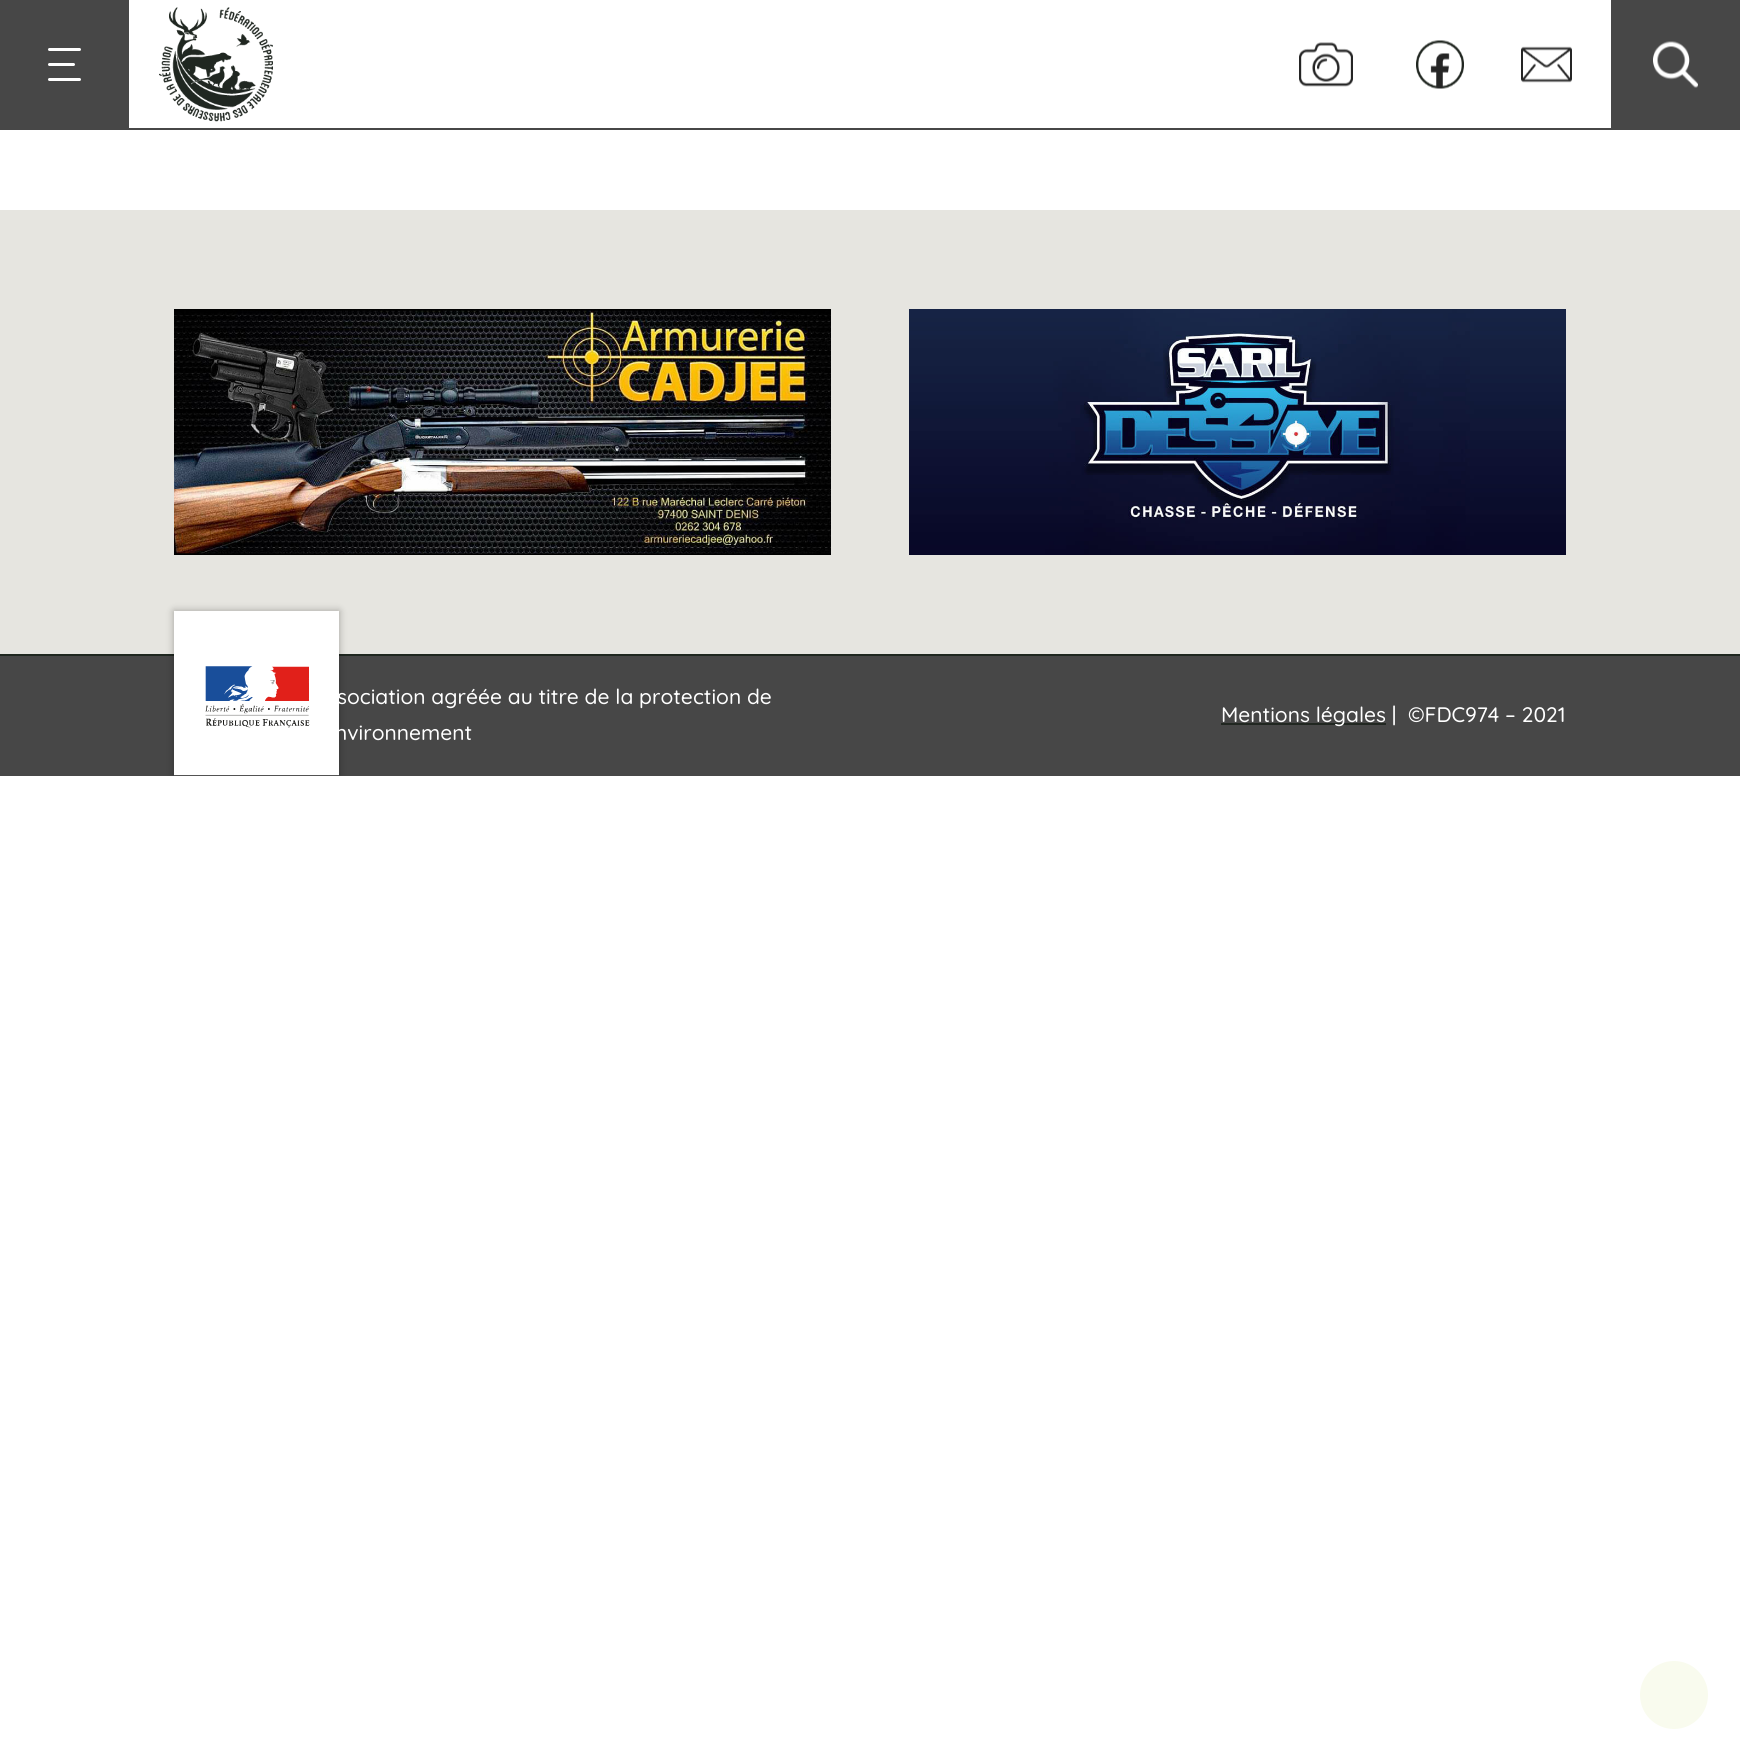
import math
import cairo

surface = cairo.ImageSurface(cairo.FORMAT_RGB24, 1740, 1760)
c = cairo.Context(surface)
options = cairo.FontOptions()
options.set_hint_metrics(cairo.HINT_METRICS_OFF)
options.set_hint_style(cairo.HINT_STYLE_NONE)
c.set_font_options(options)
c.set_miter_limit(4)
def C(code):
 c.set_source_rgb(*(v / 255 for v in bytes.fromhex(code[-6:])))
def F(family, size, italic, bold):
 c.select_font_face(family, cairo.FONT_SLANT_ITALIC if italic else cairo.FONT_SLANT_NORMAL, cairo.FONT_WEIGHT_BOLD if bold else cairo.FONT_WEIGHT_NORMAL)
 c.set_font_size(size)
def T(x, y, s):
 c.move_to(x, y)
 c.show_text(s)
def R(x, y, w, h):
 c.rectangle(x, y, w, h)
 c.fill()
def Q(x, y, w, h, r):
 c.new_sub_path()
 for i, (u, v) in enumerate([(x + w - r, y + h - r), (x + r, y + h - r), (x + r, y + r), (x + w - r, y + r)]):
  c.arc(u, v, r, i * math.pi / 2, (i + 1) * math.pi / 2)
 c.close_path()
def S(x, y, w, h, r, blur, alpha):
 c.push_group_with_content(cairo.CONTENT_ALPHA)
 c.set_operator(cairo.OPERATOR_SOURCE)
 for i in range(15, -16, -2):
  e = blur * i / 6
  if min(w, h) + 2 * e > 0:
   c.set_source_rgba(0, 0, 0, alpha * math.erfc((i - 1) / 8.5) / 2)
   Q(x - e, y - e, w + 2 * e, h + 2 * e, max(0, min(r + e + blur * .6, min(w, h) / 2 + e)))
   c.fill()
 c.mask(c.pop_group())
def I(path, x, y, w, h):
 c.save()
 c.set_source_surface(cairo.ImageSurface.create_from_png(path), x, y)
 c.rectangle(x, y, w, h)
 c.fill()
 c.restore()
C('ffffff')
c.paint()
C('474747')
R(0,128,1740,2)
R(0,0,129,128)
C('ffffff')
Q(48,48,33,3,1.5)
c.fill()
Q(48,63,27,3,1.5)
c.fill()
Q(48,78,33,3,1.5)
c.fill()
I('1.png',159,7,114,115)
I('2.png',1299,42,54,45)
I('3.png',1416,40,48,49)
I('4.png',1521,46,51,37)
C('474747')
R(1611,0,129,128)
I('5.png',1653,41,45,47)
C('e6e5e0')
R(0,210,1740,444)
I('6.png',174,309,657,246)
I('7.png',909,309,657,246)
C('474747')
R(0,656,1740,120)
C('1f2720')
R(0,654,1740,2)
c.save()
c.rectangle(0,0,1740,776)
c.clip()
C('000000')
S(174,611,165,165,0,4,.3)
c.restore()
I('8.png',174,611,165,165)
F('Quicksand Light',21,0,0)
C('ffffff')
T(337,704,'sociation agréée au titre de la protection de')
T(335,740,'nvironnement')
C('212721')
R(1221,723,165,2)
C('ffffff')
T(1221,722,'Mentions légales |  ©FDC974 – 2021')
C('f9fbee')
c.new_path()
c.arc(1674,1695,35,0,2 * math.pi)
c.fill_preserve()
C('ffffff')
c.stroke()
surface.write_to_png('o.png')
